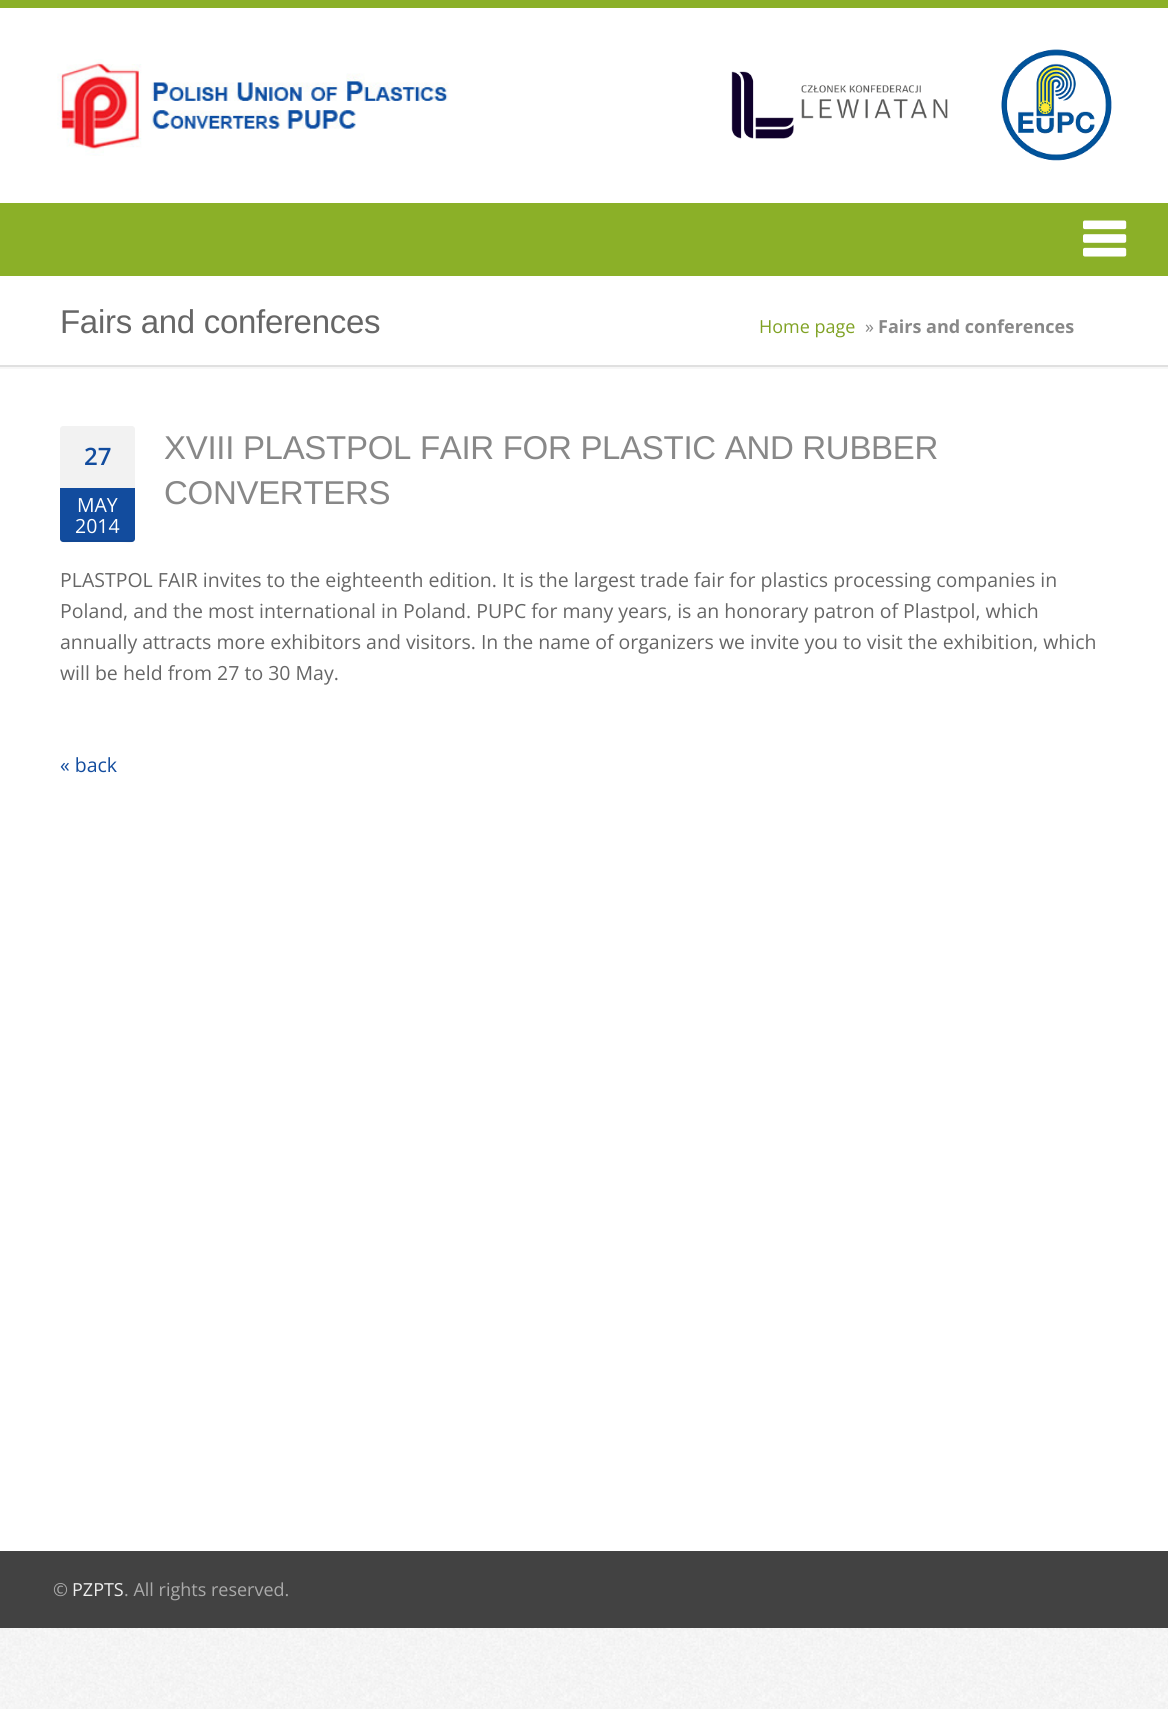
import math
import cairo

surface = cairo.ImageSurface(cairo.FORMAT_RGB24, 1168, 1709)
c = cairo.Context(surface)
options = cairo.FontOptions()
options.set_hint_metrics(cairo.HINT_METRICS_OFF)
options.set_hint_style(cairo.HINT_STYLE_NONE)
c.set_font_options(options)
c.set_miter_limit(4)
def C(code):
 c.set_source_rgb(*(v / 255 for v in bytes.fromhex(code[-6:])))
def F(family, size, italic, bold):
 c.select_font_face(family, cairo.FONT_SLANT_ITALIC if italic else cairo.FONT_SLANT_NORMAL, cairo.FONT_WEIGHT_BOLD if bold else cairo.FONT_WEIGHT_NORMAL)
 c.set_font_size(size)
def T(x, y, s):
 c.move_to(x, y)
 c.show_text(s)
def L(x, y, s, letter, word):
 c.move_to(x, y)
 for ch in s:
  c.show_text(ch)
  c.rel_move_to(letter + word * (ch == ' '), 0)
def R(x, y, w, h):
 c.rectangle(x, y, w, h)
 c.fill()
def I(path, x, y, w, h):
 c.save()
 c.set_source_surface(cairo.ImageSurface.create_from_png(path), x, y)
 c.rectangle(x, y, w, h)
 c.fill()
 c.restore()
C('ffffff')
c.paint()
I('1.png',0,1628,1168,81)
C('8bb028')
R(0,0,1168,8)
I('2.png',57,59,392,97)
I('3.png',731,71,217,68)
I('4.png',1001,49,111,112)
R(0,203,1168,73)
I('5.png',1083,220,44,37)
C('f7f7f7')
c.new_path()
c.move_to(0,366)
c.line_to(0,369)
c.line_to(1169,369)
c.line_to(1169,291)
c.line_to(1168,291)
c.line_to(1168,366)
c.close_path()
c.fill()
C('e0e0e0')
R(0,365,1168,2)
F('Liberation Sans',33,0,0)
C('666666')
L(60,333,'Fairs and conferences',-.3,0)
F('Open Sans',18,0,0)
C('80a224')
T(759,333,'Home page')
C('888888')
T(865,333,'»')
F('Open Sans',18,0,1)
T(878,333,'Fairs and conferences')
C('f2f2f2')
c.new_path()
c.move_to(63,426)
c.line_to(132,426)
c.curve_to(133.5,426,135,427.5,135,429)
c.line_to(135,488)
c.line_to(60,488)
c.line_to(60,429)
c.curve_to(60,427.5,61.5,426,63,426)
c.close_path()
c.fill()
F('Open Sans SemiBold',24,0,0)
C('124c9e')
T(84,465,'27')
c.new_path()
c.move_to(60,488)
c.line_to(135,488)
c.line_to(135,539)
c.curve_to(135,540.5,133.5,542,132,542)
c.line_to(63,542)
c.curve_to(61.5,542,60,540.5,60,539)
c.close_path()
c.fill()
c.set_source_rgba(0,0,0,0.07)
c.new_path()
c.move_to(60,537)
c.curve_to(60,545,67,542,74,542)
c.line_to(120,542)
c.curve_to(128,542,135,545,135,537)
c.curve_to(135,539,134,540,132,540)
c.line_to(63,540)
c.curve_to(61,540,60,539,60,537)
c.close_path()
c.fill()
F('Open Sans',19.5,0,0)
C('ffffff')
T(77,512,'MAY')
T(75,533,'2014')
F('Liberation Sans',33,0,0)
C('888888')
L(164,459,'XVIII PLASTPOL FAIR FOR PLASTIC AND RUBBER',-.3,0)
L(164,504,'CONVERTERS',-.3,0)
F('Open Sans',19.5,0,0)
C('666666')
T(60,587,'PLASTPOL FAIR invites to the eighteenth edition. It is the largest trade fair for plastics processing companies in')
T(60,618,'Poland, and the most international in Poland. PUPC for many years, is an honorary patron of Plastpol, which')
T(60,649,'annually attracts more exhibitors and visitors. In the name of organizers we invite you to visit the exhibition, which')
T(60,680,'will be held from 27 to 30 May.')
C('124c9e')
T(60,772,'« back')
C('424242')
R(0,1551,1168,77)
F('Open Sans',18,0,0)
C('aaaaaa')
T(53,1596,'©')
C('eeeeee')
T(72,1596,'PZPTS')
C('aaaaaa')
T(124,1596,'. All rights reserved.')
surface.write_to_png('o.png')
